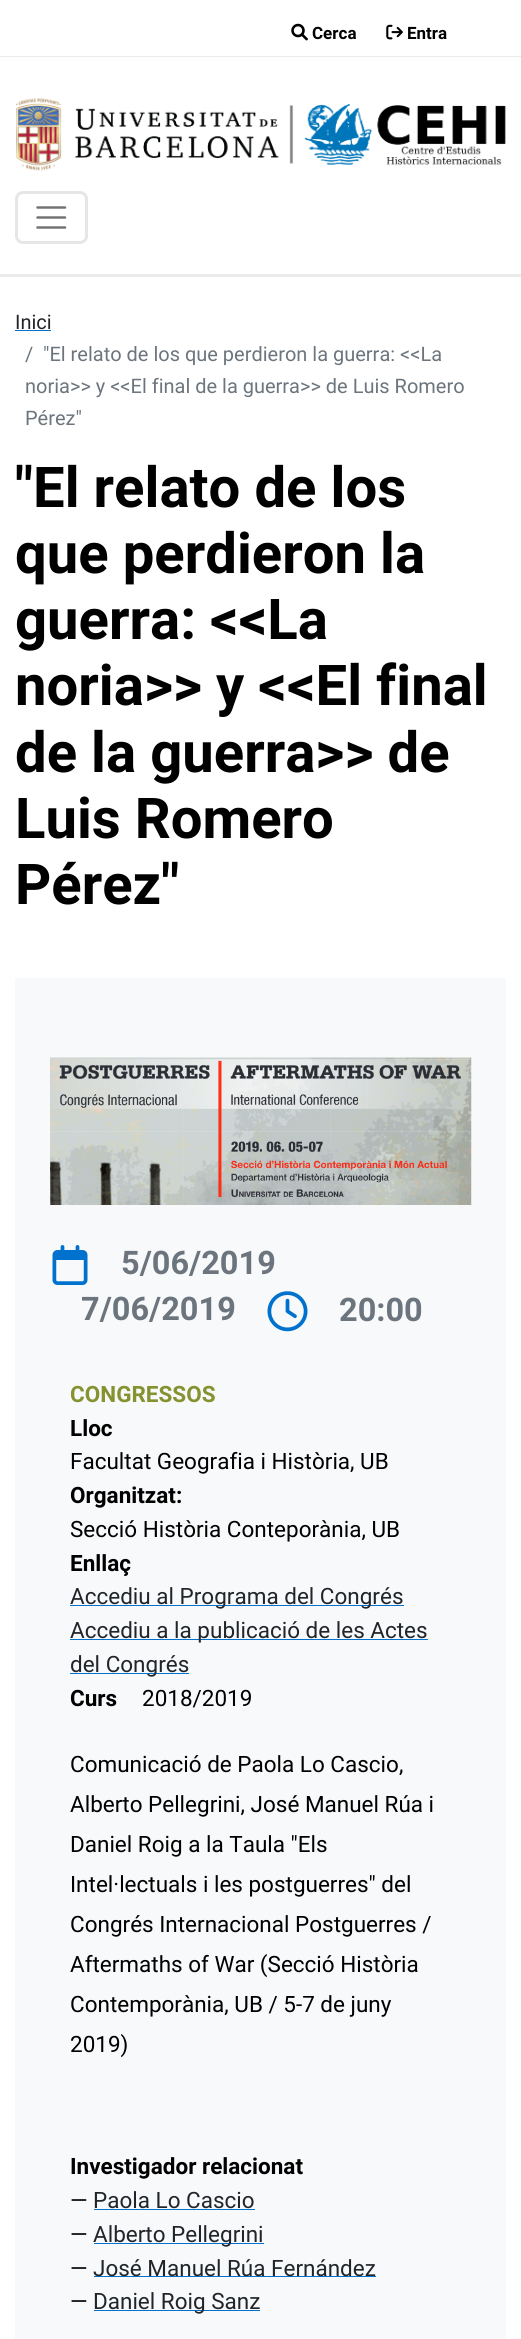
import math
import cairo

surface = cairo.ImageSurface(cairo.FORMAT_RGB24, 521, 2339)
c = cairo.Context(surface)
options = cairo.FontOptions()
options.set_hint_metrics(cairo.HINT_METRICS_OFF)
options.set_hint_style(cairo.HINT_STYLE_NONE)
c.set_font_options(options)
c.set_miter_limit(4)
def C(code):
 c.set_source_rgb(*(v / 255 for v in bytes.fromhex(code[-6:])))
def F(family, size, italic, bold):
 c.select_font_face(family, cairo.FONT_SLANT_ITALIC if italic else cairo.FONT_SLANT_NORMAL, cairo.FONT_WEIGHT_BOLD if bold else cairo.FONT_WEIGHT_NORMAL)
 c.set_font_size(size)
def T(x, y, s):
 c.move_to(x, y)
 c.show_text(s)
def R(x, y, w, h):
 c.rectangle(x, y, w, h)
 c.fill()
def Q(x, y, w, h, r):
 c.new_sub_path()
 for i, (u, v) in enumerate([(x + w - r, y + h - r), (x + r, y + h - r), (x + r, y + r), (x + w - r, y + r)]):
  c.arc(u, v, r, i * math.pi / 2, (i + 1) * math.pi / 2)
 c.close_path()
def I(path, x, y, w, h):
 c.save()
 c.set_source_surface(cairo.ImageSurface.create_from_png(path), x, y)
 c.rectangle(x, y, w, h)
 c.fill()
 c.restore()
C('ffffff')
c.paint()
C('ebebeb')
R(0,56,521,1)
I('1.png',291,23,17,18)
F('Roboto',17,0,1)
C('000000')
T(312,39,'Cerca')
I('2.png',386,24,17,16)
T(407,39,'Entra')
C('ebebeb')
R(0,274,521,3)
I('3.png',16,98,490,73)
Q(16.5,192.5,70,50,6.5)
C('e6e6e6')
c.set_line_width(3)
c.stroke()
c.new_path()
c.move_to(37.5,207.5)
c.line_to(65,207.5)
c.move_to(37.5,217.5)
c.line_to(65,217.5)
c.move_to(37.5,227.5)
c.line_to(65,227.5)
C('737373')
c.set_line_width(2.5)
c.set_line_cap(cairo.LINE_CAP_ROUND)
c.stroke()
F('Roboto',20,0,0)
C('212529')
T(15,329,'Inici')
C('0072ce')
R(15,330,36,1)
C('6c757d')
T(25,361,'/')
T(43,361,'"El relato de los que perdieron la guerra: <<La')
T(25,393,'noria>> y <<El final de la guerra>> de Luis Romero')
T(25,425,'Pérez"')
F('Roboto',56.25,0,1)
C('000000')
T(15,507,'"El relato de los')
T(15,573,'que perdieron la')
T(15,639,'guerra: <<La')
T(15,705,'noria>> y <<El final')
T(15,772,'de la guerra>> de')
T(15,838,'Luis Romero')
T(15,904,'Pérez"')
C('f8f9fa')
R(15,978,491,1361)
I('4.png',50,1057,422,148)
I('5.png',52,1245,36,40)
F('Roboto',32.5,0,1)
C('6c757d')
T(121,1274,'5/06/2019')
T(81,1320,'7/06/2019')
I('6.png',267,1291,41,41)
T(339,1321,'20:00')
F('Roboto',22.5,0,1)
C('869130')
T(70,1402,'CONGRESSOS')
C('000000')
T(70,1436,'Lloc')
F('Roboto',22.5,0,0)
T(70,1469,'Facultat Geografia i Història, UB')
F('Roboto',22.5,0,1)
T(70,1503,'Organitzat:')
F('Roboto',22.5,0,0)
T(70,1537,'Secció Història Conteporània, UB')
F('Roboto',22.5,0,1)
T(70,1571,'Enllaç')
C('0072ce')
R(70,1605,334,1)
F('Roboto',22.5,0,0)
C('212529')
T(70,1604,'Accediu al Programa del Congrés')
C('0072ce')
R(70,1639,358,1)
C('212529')
T(70,1638,'Accediu a la publicació de les Actes')
C('0072ce')
R(70,1673,119,1)
C('212529')
T(70,1672,'del Congrés')
F('Roboto',22.5,0,1)
C('000000')
T(70,1706,'Curs')
F('Roboto',22.5,0,0)
T(142,1706,'2018/2019')
T(70,1772,'Comunicació de Paola Lo Cascio,')
T(70,1812,'Alberto Pellegrini, José Manuel Rúa i')
T(70,1852,'Daniel Roig a la Taula "Els')
T(70,1892,'Intel·lectuals i les postguerres" del')
T(70,1932,'Congrés Internacional Postguerres /')
T(70,1972,'Aftermaths of War (Secció Història')
T(70,2012,'Contemporània, UB / 5-7 de juny')
T(70,2052,'2019)')
F('Roboto',22.5,0,1)
T(70,2174,'Investigador relacionat')
F('Roboto',22.5,0,0)
T(70,2208,'—')
C('212529')
T(93,2208,'Paola Lo Cascio')
C('0072ce')
R(94,2209,161,1)
C('000000')
T(70,2242,'—')
C('0072ce')
R(94,2243,170,1)
C('212529')
T(93,2242,'Alberto Pellegrini')
C('000000')
T(70,2276,'—')
C('0072ce')
R(94,2276,282,1)
C('212529')
T(93,2276,'José Manuel Rúa Fernández')
C('000000')
T(70,2309,'—')
C('0072ce')
R(94,2310,166,1)
C('212529')
T(93,2309,'Daniel Roig Sanz')
surface.write_to_png('o.png')
